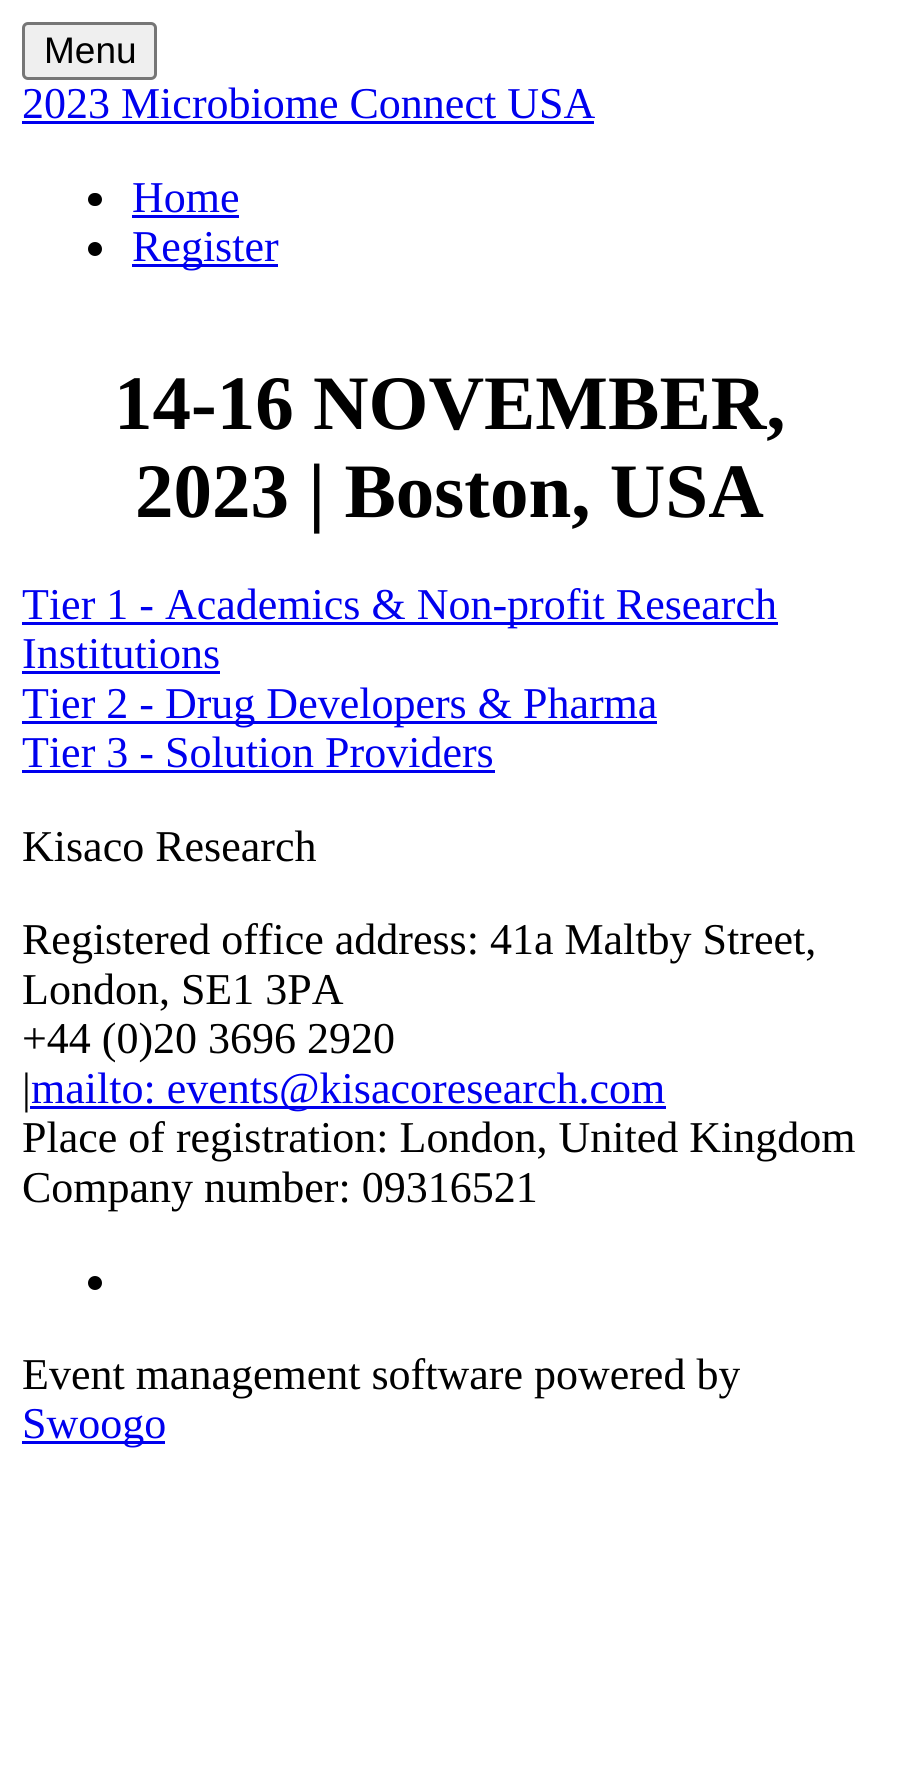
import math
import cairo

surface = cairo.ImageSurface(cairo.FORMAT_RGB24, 897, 1773)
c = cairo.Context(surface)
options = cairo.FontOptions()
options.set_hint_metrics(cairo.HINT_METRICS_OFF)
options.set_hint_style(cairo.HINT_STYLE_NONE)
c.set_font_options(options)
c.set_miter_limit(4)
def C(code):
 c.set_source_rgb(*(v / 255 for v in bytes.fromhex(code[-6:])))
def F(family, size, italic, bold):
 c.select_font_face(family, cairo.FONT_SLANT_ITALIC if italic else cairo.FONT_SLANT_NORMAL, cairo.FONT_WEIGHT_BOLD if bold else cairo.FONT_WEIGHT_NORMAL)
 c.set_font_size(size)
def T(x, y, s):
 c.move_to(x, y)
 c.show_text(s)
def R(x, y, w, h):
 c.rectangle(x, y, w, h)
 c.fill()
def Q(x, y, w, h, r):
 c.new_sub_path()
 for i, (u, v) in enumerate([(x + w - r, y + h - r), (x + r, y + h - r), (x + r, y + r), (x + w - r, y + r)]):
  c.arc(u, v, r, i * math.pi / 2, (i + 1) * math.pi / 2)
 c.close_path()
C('ffffff')
c.paint()
C('efefef')
Q(23.5,23.5,132,55,4.5)
c.fill_preserve()
C('767676')
c.set_line_width(3)
c.stroke()
F('Liberation Sans',37,0,0)
C('000000')
T(44,63,'Menu')
F('Liberation Serif',44,0,0)
C('0000ee')
T(22,118,'2023 Microbiome Connect USA')
R(22,121,572,3)
C('000000')
Q(88,193,14,13,6.5)
c.fill()
C('0000ee')
T(132,212,'Home')
R(132,215,107,3)
C('000000')
c.new_path()
c.arc(95,249,7,0,2 * math.pi)
c.fill()
C('0000ee')
R(132,264,146,3)
T(132,261,'Register')
F('Liberation Serif',77,0,1)
C('000000')
T(114,429,'14-16 NOVEMBER,')
T(135,517,'2023 | Boston, USA')
C('0000ee')
R(22,622,756,3)
F('Liberation Serif',44,0,0)
T(22,619,'Tier 1 - Academics & Non-profit Research')
T(22,668,'Institutions')
R(22,671,198,3)
R(22,721,635,3)
T(22,718,'Tier 2 - Drug Developers & Pharma')
T(22,767,'Tier 3 - Solution Providers')
R(22,770,473,3)
C('000000')
T(22,861,'Kisaco Research')
T(22,954,'Registered office address: 41a Maltby Street,')
T(22,1004,'London, SE1 3PA')
T(22,1053,'+44 (0)20 3696 2920')
T(22,1103,'|')
C('0000ee')
R(30,1106,636,3)
T(31,1103,'mailto: events@kisacoresearch.com')
C('000000')
T(22,1152,'Place of registration: London, United Kingdom')
T(22,1202,'Company number: 09316521')
c.new_path()
c.arc(95,1283,7,0,2 * math.pi)
c.fill()
T(22,1389,'Event management software powered by')
C('0000ee')
R(22,1441,143,3)
T(22,1438,'Swoogo')
surface.write_to_png('o.png')
